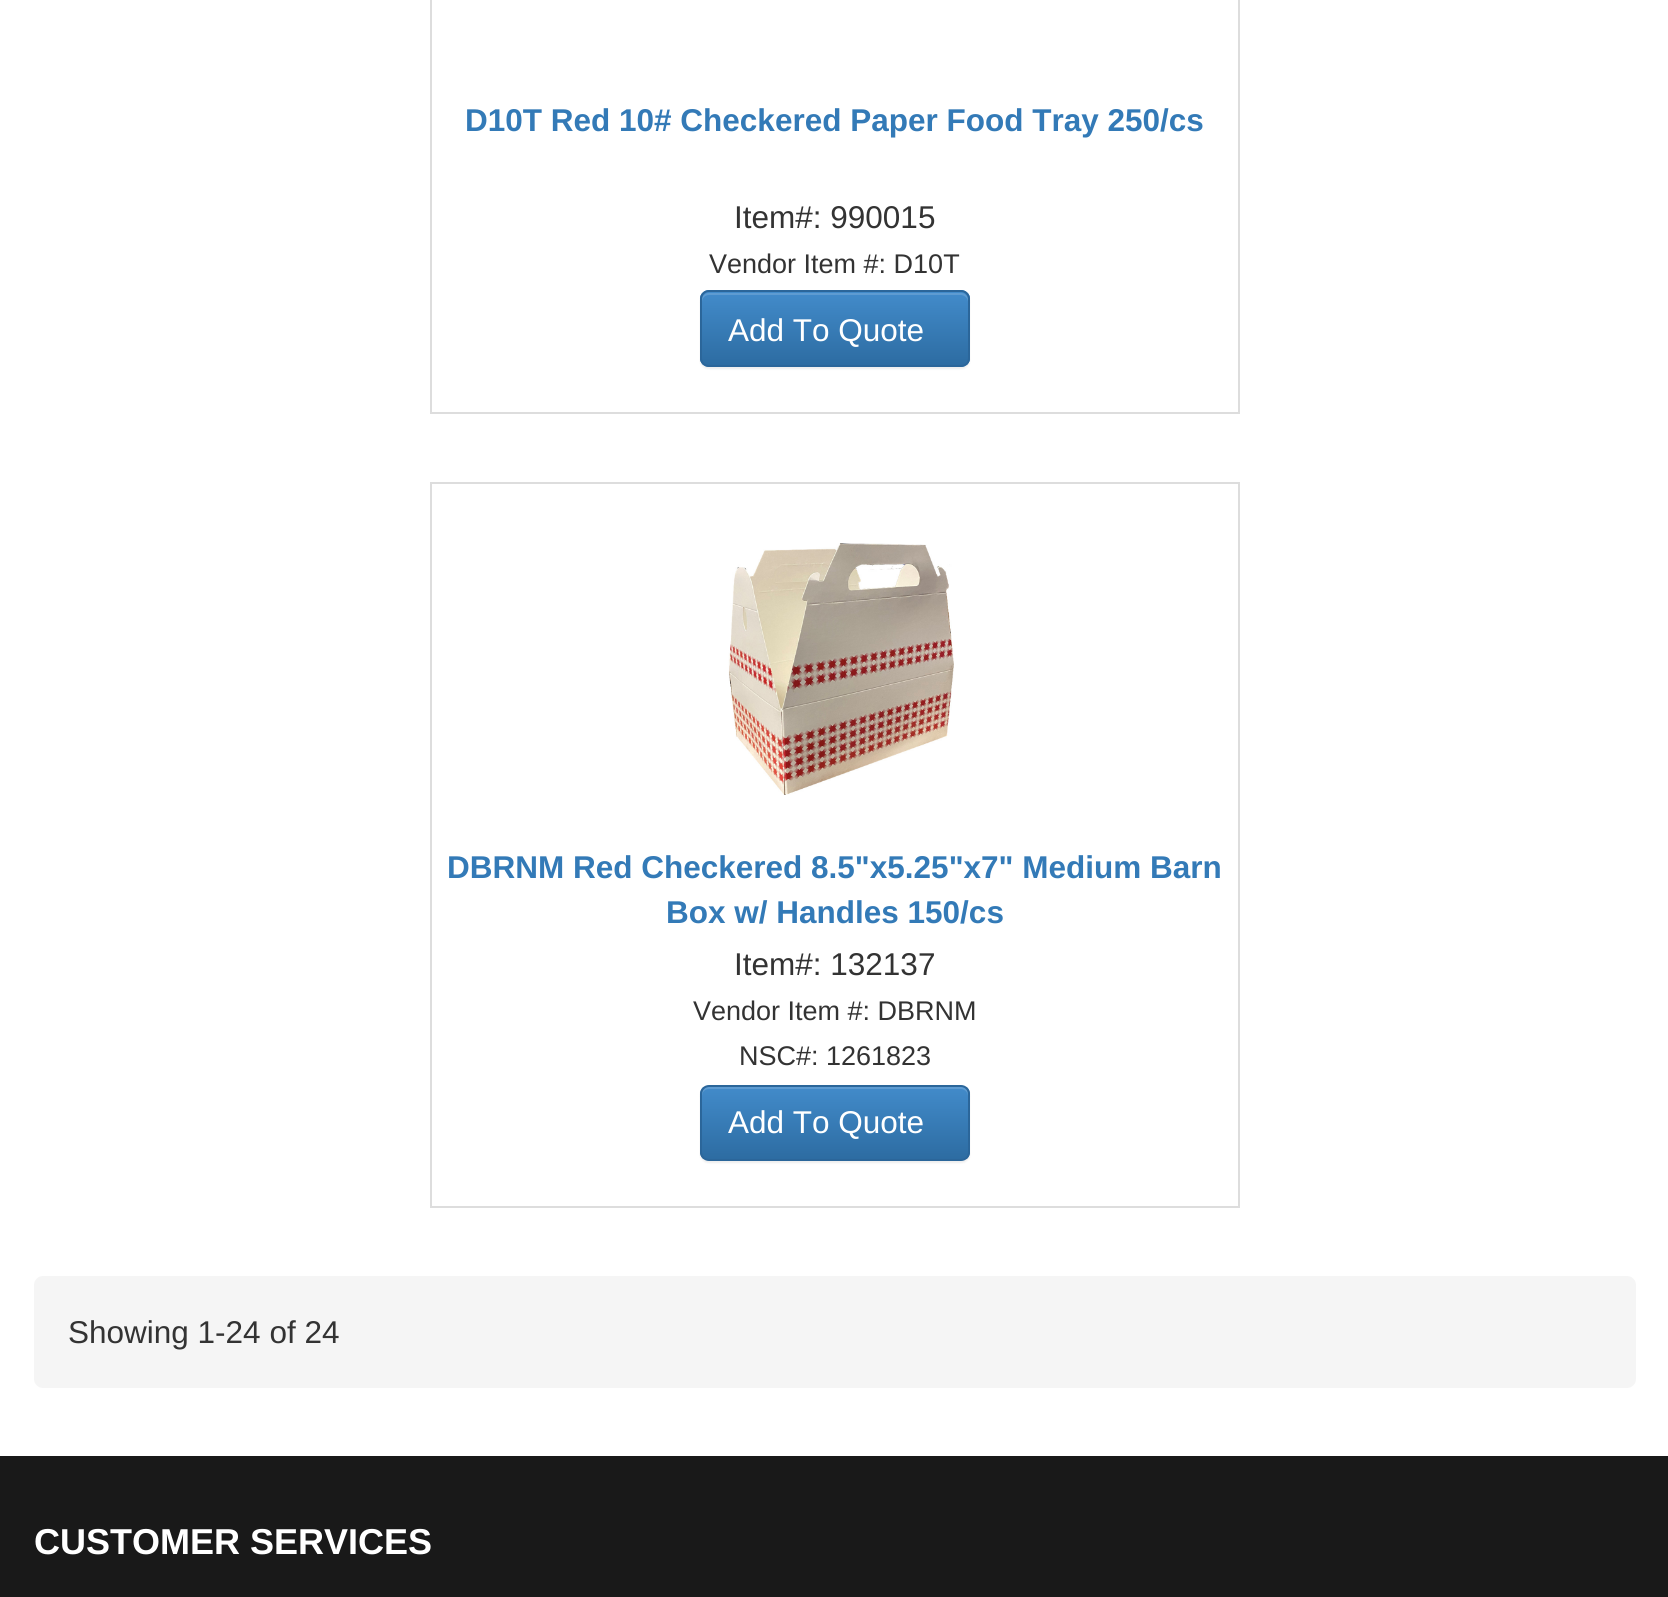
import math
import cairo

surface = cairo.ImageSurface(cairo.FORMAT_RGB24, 1668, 1597)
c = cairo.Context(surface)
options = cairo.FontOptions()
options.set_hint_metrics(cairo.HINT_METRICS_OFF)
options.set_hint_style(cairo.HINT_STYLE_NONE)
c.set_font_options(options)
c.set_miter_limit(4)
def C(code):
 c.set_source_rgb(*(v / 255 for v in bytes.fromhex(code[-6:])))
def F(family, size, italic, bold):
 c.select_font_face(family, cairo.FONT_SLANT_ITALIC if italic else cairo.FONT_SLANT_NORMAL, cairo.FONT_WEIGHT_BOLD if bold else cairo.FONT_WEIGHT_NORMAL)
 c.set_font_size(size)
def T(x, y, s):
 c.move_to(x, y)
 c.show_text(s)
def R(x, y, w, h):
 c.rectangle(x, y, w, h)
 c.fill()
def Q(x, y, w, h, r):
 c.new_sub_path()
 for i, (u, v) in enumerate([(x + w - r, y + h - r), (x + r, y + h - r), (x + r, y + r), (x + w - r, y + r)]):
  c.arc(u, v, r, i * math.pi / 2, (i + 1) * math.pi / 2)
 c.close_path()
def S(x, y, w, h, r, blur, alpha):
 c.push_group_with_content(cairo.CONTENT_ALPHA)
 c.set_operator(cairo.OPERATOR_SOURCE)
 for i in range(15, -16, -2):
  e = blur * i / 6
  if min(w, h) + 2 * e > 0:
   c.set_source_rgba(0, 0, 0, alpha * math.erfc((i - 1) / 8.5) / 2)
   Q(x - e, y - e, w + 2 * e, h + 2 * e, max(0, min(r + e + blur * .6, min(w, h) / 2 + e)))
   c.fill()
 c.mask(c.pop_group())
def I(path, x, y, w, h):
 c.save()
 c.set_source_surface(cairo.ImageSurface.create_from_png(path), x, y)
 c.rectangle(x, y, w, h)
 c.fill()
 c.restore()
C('ffffff')
c.paint()
c.rectangle(431,-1,808,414)
C('dddddd')
c.stroke()
F('Liberation Sans',31.5,0,1)
C('337ab7')
T(465,131,'D10T Red 10# Checkered Paper Food Tray 250/cs')
F('Liberation Sans',31.5,0,0)
C('333333')
T(734,228,'Item#: 990015')
F('Liberation Sans',27,0,0)
T(709,273,'Vendor Item #: D10T')
C('000000')
S(700,293,270,76,9,1,.07)
C('428bca')
Q(700,290,270,77,9)
c.fill()
c.save()
Q(700,290,270,77,9)
c.clip()
gradient = cairo.LinearGradient(835,293,835,365)
gradient.add_color_stop_rgba(0,0.259,0.545,0.792,1)
gradient.add_color_stop_rgba(1,0.176,0.424,0.635,1)
c.set_source(gradient)
R(700,293,270,72)
c.restore()
c.set_source_rgba(1,1,1,0.15)
c.new_path()
c.move_to(709,295)
c.line_to(961,295)
c.curve_to(964,295,968,298,968,302)
c.line_to(968,300)
c.curve_to(968,296,965,293,961,293)
c.line_to(709,293)
c.curve_to(705,293,702,296,702,300)
c.line_to(702,302)
c.curve_to(702,298,705,295,709,295)
c.close_path()
c.fill()
Q(701,291,268,75,8)
C('2b669a')
c.stroke()
F('Liberation Sans',31.5,0,0)
C('ffffff')
T(728,341,'Add To Quote')
c.rectangle(431,483,808,724)
C('dddddd')
c.stroke()
I('1.png',728,543,226,252)
F('Liberation Sans',31.5,0,1)
C('337ab7')
T(447,878,'DBRNM Red Checkered 8.5"x5.25"x7" Medium Barn')
T(666,923,'Box w/ Handles 150/cs')
F('Liberation Sans',31.5,0,0)
C('333333')
T(734,975,'Item#: 132137')
F('Liberation Sans',27,0,0)
T(693,1020,'Vendor Item #: DBRNM')
T(739,1065,'NSC#: 1261823')
C('000000')
S(700,1087,270,76,9,1,.07)
c.save()
Q(700,1085,270,76,9)
c.clip()
gradient = cairo.LinearGradient(835,1087,835,1159)
gradient.add_color_stop_rgba(0,0.259,0.545,0.792,1)
gradient.add_color_stop_rgba(1,0.176,0.424,0.635,1)
c.set_source(gradient)
R(700,1087,270,72)
c.restore()
c.set_source_rgba(1,1,1,0.15)
c.new_path()
c.move_to(709,1089)
c.line_to(961,1089)
c.curve_to(964,1089,968,1092,968,1096)
c.line_to(968,1094)
c.curve_to(968,1090,965,1087,961,1087)
c.line_to(709,1087)
c.curve_to(705,1087,702,1090,702,1094)
c.line_to(702,1096)
c.curve_to(702,1092,705,1089,709,1089)
c.close_path()
c.fill()
Q(701,1086,268,74,8)
C('2b669a')
c.stroke()
F('Liberation Sans',31.5,0,0)
C('ffffff')
T(728,1133,'Add To Quote')
C('f5f5f5')
Q(34,1276,1602,112,9)
c.fill()
C('333333')
T(68,1343,'Showing 1-24 of 24')
C('191919')
R(0,1456,1668,141)
F('Liberation Sans',36,0,1)
C('ffffff')
T(34,1554,'CUSTOMER SERVICES')
surface.write_to_png('o.png')
